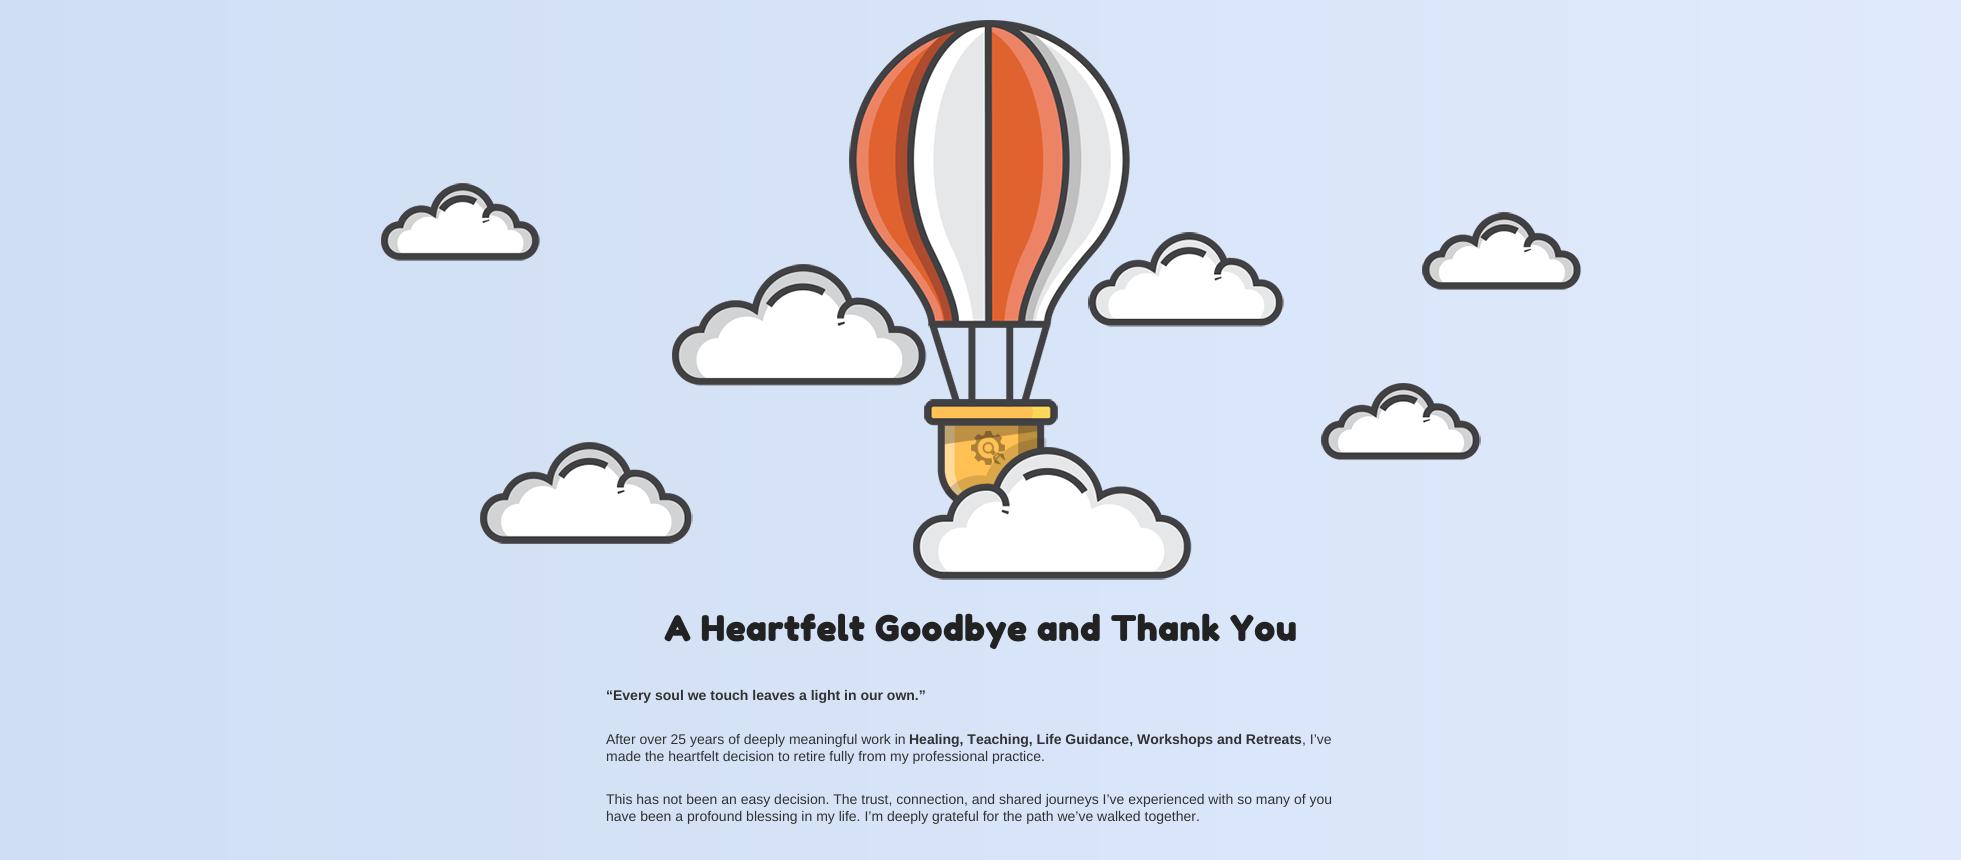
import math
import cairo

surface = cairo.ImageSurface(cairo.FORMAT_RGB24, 1961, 860)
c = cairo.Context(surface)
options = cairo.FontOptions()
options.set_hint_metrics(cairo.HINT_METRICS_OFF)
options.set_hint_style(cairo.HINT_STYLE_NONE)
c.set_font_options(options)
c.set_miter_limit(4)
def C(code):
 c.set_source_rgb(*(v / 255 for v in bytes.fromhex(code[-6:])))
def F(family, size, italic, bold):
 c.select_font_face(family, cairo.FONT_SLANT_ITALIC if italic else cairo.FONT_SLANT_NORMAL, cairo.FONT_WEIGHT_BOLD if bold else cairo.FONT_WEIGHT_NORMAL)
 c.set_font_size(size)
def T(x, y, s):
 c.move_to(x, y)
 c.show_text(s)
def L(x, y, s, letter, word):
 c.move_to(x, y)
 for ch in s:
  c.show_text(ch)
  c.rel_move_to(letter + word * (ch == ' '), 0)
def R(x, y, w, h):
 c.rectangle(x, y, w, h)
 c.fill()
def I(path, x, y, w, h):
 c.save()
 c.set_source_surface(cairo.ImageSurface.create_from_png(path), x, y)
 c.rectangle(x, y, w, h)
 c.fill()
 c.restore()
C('ffffff')
c.paint()
gradient = cairo.LinearGradient(1961,430,0,430)
gradient.add_color_stop_rgba(0,0.878,0.918,0.988,1)
gradient.add_color_stop_rgba(1,0.812,0.871,0.953,1)
c.set_source(gradient)
R(0,0,1961,860)
I('1.png',381,20,1200,560)
F('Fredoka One',34,0,1)
C('222222')
L(664,641,'A Heartfelt Goodbye and Thank You',1,0)
F('Liberation Sans',14,0,1)
C('313131')
T(606,700,'“Every soul we touch leaves a light in our own.”')
F('Liberation Sans',14,0,0)
T(606,744,'After over 25 years of deeply meaningful work in')
F('Liberation Sans',14,0,1)
T(909,744,'Healing, Teaching, Life Guidance, Workshops and Retreats')
F('Liberation Sans',14,0,0)
T(1302,744,', I’ve')
T(606,761,'made the heartfelt decision to retire fully from my professional practice.')
T(606,804,'This has not been an easy decision. The trust, connection, and shared journeys I’ve experienced with so many of you')
T(606,821,'have been a profound blessing in my life. I’m deeply grateful for the path we’ve walked together.')
surface.write_to_png('o.png')
